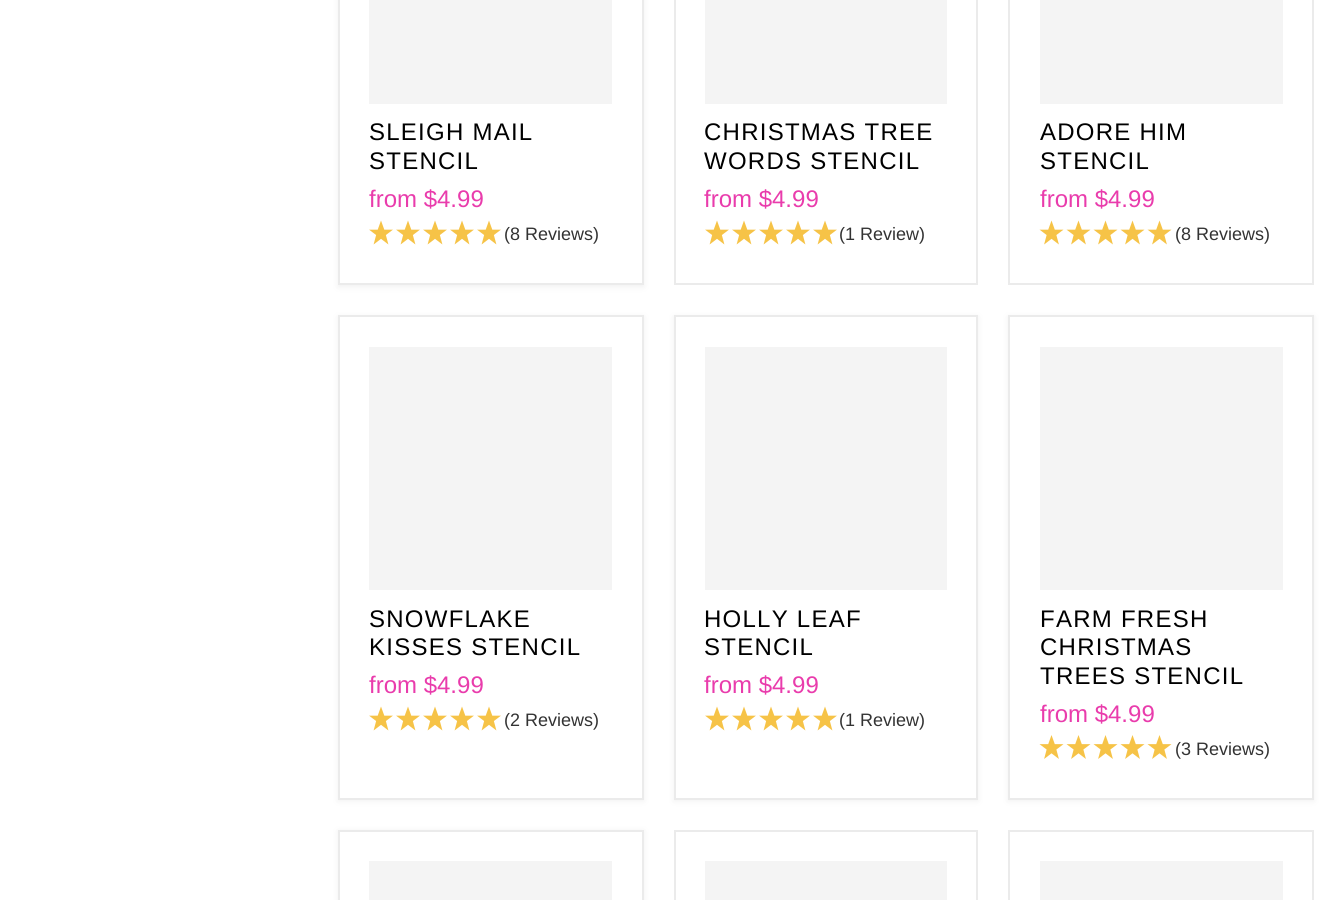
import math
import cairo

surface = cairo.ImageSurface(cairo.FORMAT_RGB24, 1336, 900)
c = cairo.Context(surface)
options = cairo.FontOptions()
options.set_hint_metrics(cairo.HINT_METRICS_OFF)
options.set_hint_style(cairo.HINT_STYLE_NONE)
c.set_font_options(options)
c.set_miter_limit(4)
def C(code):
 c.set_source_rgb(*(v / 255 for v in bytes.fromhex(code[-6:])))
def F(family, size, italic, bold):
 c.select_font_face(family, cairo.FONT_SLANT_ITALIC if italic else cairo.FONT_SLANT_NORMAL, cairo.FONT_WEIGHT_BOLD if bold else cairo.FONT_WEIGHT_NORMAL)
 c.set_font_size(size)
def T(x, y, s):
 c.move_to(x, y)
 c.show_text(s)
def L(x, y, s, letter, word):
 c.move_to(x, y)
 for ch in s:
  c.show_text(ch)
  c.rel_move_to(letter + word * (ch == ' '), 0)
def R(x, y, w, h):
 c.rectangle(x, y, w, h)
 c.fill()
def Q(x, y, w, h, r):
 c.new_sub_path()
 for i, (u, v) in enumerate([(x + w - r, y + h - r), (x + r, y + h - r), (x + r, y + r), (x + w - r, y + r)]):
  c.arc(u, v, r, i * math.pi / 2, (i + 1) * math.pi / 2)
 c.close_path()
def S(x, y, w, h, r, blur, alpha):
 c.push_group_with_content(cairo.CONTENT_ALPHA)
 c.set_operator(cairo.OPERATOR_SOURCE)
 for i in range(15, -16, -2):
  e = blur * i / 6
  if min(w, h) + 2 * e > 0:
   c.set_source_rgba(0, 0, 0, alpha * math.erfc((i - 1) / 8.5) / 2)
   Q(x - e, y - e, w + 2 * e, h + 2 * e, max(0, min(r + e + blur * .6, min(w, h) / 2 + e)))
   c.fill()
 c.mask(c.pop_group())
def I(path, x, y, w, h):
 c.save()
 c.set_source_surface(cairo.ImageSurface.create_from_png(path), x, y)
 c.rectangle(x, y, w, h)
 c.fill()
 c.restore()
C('ffffff')
c.paint()
C('7f7f7f')
S(338,-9,306,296,0,3,.11)
C('ffffff')
c.rectangle(339,-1,304,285)
c.fill_preserve()
C('ebebeb')
c.stroke()
C('f4f4f4')
R(369,0,243,104)
F('Liberation Sans',24,0,0)
C('000000')
L(369,140,'SLEIGH MAIL',1.25,0)
L(369,169,'STENCIL',1.25,0)
C('e93cac')
T(369,207,'from $4.99')
I('1.png',369,220,24,25)
I('1.png',396,220,24,25)
I('1.png',423,220,24,25)
I('1.png',450,220,24,25)
I('1.png',477,220,24,25)
F('Liberation Sans',18,0,0)
C('333333')
T(504,240,'(8 Reviews)')
c.rectangle(675,-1,302,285)
C('ebebeb')
c.stroke()
C('f4f4f4')
R(705,0,242,104)
F('Liberation Sans',24,0,0)
C('000000')
L(704,140,'CHRISTMAS TREE',1.25,0)
L(704,169,'WORDS STENCIL',1.25,0)
C('e93cac')
T(704,207,'from $4.99')
I('1.png',705,220,24,25)
I('1.png',732,220,24,25)
I('1.png',759,220,24,25)
I('1.png',786,220,24,25)
I('1.png',813,220,24,25)
F('Liberation Sans',18,0,0)
C('333333')
T(839,240,'(1 Review)')
c.rectangle(1009,-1,304,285)
C('ebebeb')
c.stroke()
C('f4f4f4')
R(1040,0,243,104)
F('Liberation Sans',24,0,0)
C('000000')
L(1040,140,'ADORE HIM',1.25,0)
L(1040,169,'STENCIL',1.25,0)
C('e93cac')
T(1040,207,'from $4.99')
I('2.png',1039,220,25,25)
I('2.png',1066,220,25,25)
I('2.png',1093,220,25,25)
I('2.png',1120,220,25,25)
I('2.png',1147,220,25,25)
F('Liberation Sans',18,0,0)
C('333333')
T(1175,240,'(8 Reviews)')
C('7f7f7f')
S(338,317,306,484,0,3,.11)
C('ffffff')
c.rectangle(339,316,304,483)
c.fill_preserve()
C('ebebeb')
c.stroke()
C('f4f4f4')
R(369,347,243,243)
F('Liberation Sans',24,0,0)
C('000000')
L(369,627,'SNOWFLAKE',1.25,0)
L(369,655,'KISSES STENCIL',1.25,0)
C('e93cac')
T(369,693,'from $4.99')
I('1.png',369,706,24,25)
I('1.png',396,706,24,25)
I('1.png',423,706,24,25)
I('1.png',450,706,24,25)
I('1.png',477,706,24,25)
F('Liberation Sans',18,0,0)
C('333333')
T(504,726,'(2 Reviews)')
C('7f7f7f')
S(674,317,304,484,0,3,.11)
C('ffffff')
c.rectangle(675,316,302,483)
c.fill_preserve()
C('ebebeb')
c.stroke()
C('f4f4f4')
R(705,347,242,243)
F('Liberation Sans',24,0,0)
C('000000')
L(704,627,'HOLLY LEAF',1.25,0)
L(704,655,'STENCIL',1.25,0)
C('e93cac')
T(704,693,'from $4.99')
I('1.png',705,706,24,25)
I('1.png',732,706,24,25)
I('1.png',759,706,24,25)
I('1.png',786,706,24,25)
I('1.png',813,706,24,25)
F('Liberation Sans',18,0,0)
C('333333')
T(839,726,'(1 Review)')
C('7f7f7f')
S(1008,317,306,484,0,3,.11)
C('ffffff')
c.rectangle(1009,316,304,483)
c.fill_preserve()
C('ebebeb')
c.stroke()
C('f4f4f4')
R(1040,347,243,243)
F('Liberation Sans',24,0,0)
C('000000')
L(1040,627,'FARM FRESH',1.25,0)
L(1040,655,'CHRISTMAS',1.25,0)
L(1040,684,'TREES STENCIL',1.25,0)
C('e93cac')
T(1040,722,'from $4.99')
I('3.png',1039,735,25,24)
I('3.png',1066,735,25,24)
I('3.png',1093,735,25,24)
I('3.png',1120,735,25,24)
I('3.png',1147,735,25,24)
F('Liberation Sans',18,0,0)
C('333333')
T(1175,755,'(3 Reviews)')
C('7f7f7f')
S(338,831,306,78,0,3,.11)
C('ffffff')
c.rectangle(339,831,304,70)
c.fill_preserve()
C('ebebeb')
c.stroke()
C('f4f4f4')
R(369,861,243,39)
c.rectangle(675,831,302,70)
C('ebebeb')
c.stroke()
C('f4f4f4')
R(705,861,242,39)
c.rectangle(1009,831,304,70)
C('ebebeb')
c.stroke()
C('f4f4f4')
R(1040,861,243,39)
surface.write_to_png('o.png')
